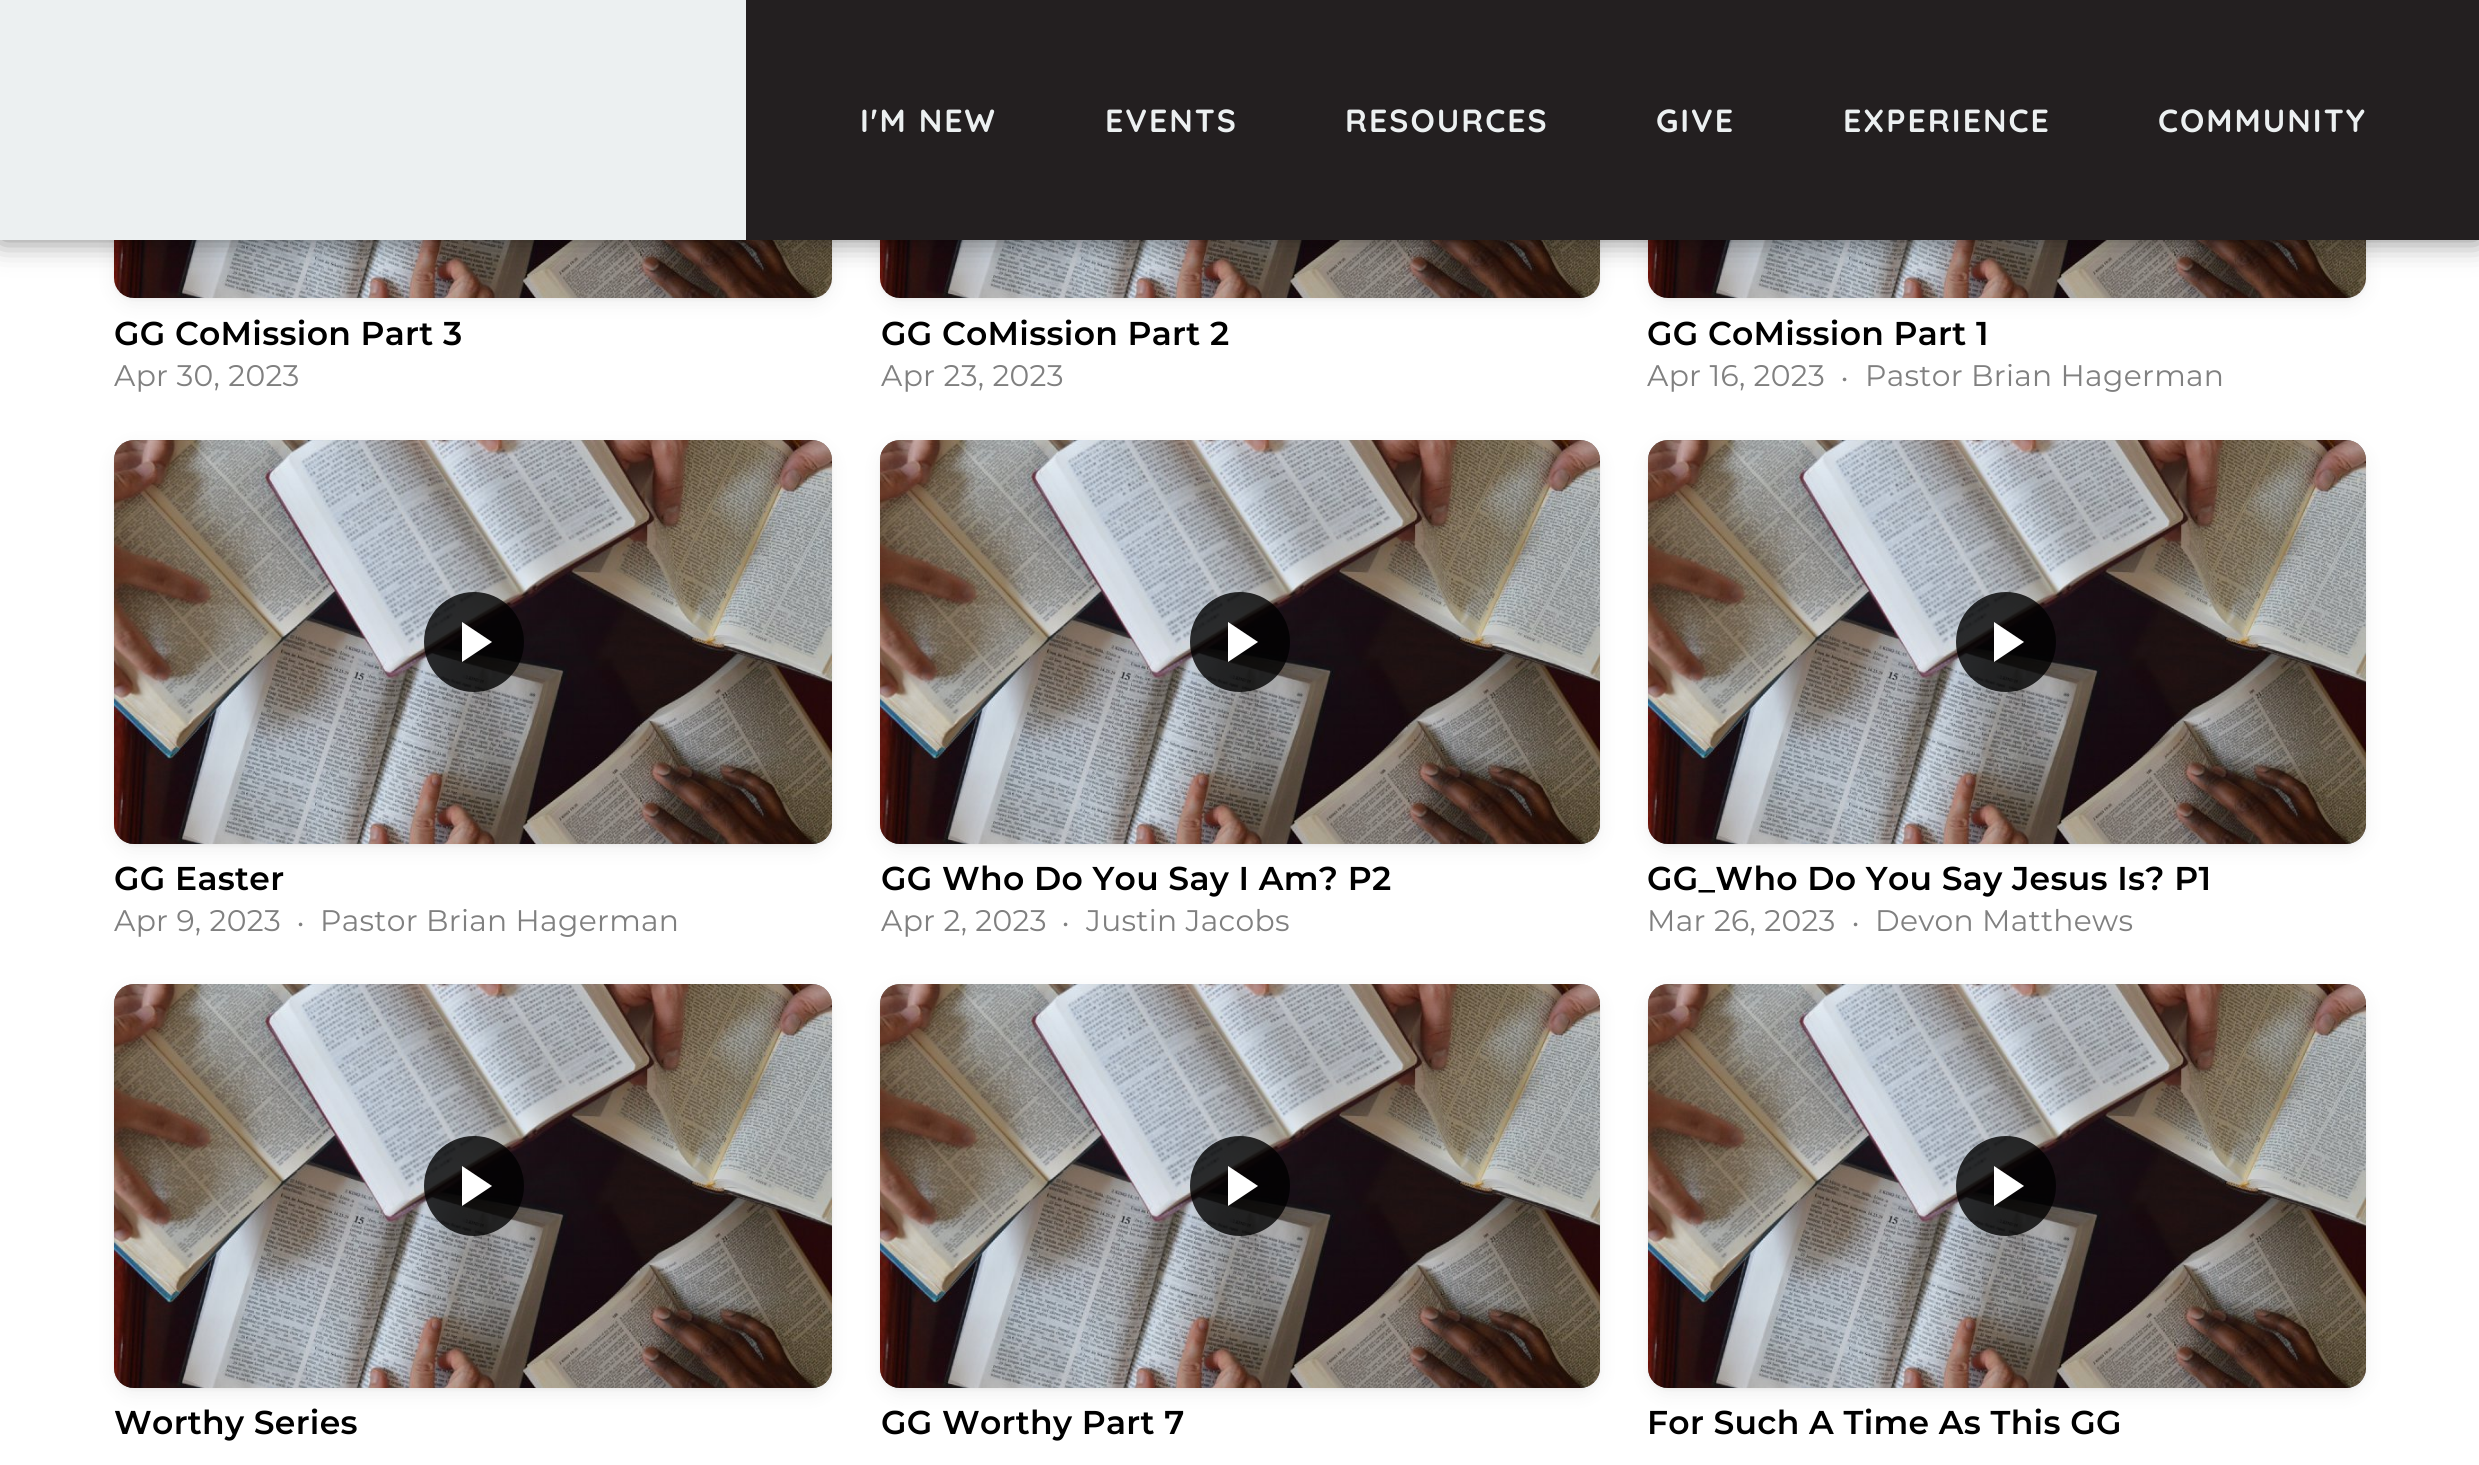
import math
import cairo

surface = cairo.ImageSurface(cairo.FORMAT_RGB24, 2479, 1465)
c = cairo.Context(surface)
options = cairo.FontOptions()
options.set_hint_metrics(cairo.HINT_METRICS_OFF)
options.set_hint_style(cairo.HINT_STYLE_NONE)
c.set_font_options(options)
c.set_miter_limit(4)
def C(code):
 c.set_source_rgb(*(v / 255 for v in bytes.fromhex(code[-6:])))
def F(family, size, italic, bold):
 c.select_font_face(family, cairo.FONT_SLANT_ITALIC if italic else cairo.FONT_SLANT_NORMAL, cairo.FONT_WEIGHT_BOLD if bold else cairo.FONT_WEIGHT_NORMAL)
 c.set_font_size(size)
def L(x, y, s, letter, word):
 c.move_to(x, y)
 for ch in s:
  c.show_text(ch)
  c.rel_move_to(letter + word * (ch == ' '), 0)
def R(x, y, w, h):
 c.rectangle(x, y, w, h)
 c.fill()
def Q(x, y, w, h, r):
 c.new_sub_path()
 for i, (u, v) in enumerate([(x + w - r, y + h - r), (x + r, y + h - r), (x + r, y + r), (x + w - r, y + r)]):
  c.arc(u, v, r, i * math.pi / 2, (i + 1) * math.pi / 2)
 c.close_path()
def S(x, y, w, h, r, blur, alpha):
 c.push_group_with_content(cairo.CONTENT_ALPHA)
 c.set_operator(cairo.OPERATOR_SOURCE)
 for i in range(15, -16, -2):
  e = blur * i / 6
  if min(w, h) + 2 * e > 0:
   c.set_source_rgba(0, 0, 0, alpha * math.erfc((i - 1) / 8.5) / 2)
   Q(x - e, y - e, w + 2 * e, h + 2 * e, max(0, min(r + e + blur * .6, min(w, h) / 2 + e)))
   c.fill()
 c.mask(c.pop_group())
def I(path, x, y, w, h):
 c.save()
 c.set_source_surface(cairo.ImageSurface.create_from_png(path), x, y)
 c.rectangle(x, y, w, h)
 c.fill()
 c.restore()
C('ffffff')
c.paint()
C('000000')
S(114,-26,718,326,20,2,.04)
S(114,-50,718,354,20,10,.06)
I('1.png',114,240,718,58)
S(880,-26,720,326,20,2,.04)
S(880,-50,720,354,20,10,.06)
I('2.png',880,240,720,58)
S(1648,-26,718,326,20,2,.04)
S(1648,-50,718,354,20,10,.06)
I('1.png',1648,240,718,58)
S(0,0,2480,240,0,15,.5)
C('ecf0f1')
R(0,0,746,240)
C('231f20')
R(746,0,1733,240)
F('Quicksand',32,0,1)
C('ecf0f1')
L(860,132,'I\'M NEW',2,0)
L(1105,132,'EVENTS',2,0)
L(1345,132,'RESOURCES',2,0)
L(1656,132,'GIVE',2,0)
L(1843,132,'EXPERIENCE',2,0)
L(2158,132,'COMMUNITY',2,0)
F('Montserrat SemiBold',33,0,0)
C('000000')
L(114,345,'GG CoMission Part 3',.3,0)
F('Montserrat',29.75,0,0)
C('808080')
L(114,386,'Apr 30, 2023',.3,0)
F('Montserrat SemiBold',33,0,0)
C('000000')
L(881,345,'GG CoMission Part 2',.3,0)
F('Montserrat',29.75,0,0)
C('808080')
L(881,386,'Apr 23, 2023',.3,0)
F('Montserrat SemiBold',33,0,0)
C('000000')
L(1647,345,'GG CoMission Part 1',.3,0)
F('Montserrat',29.75,0,0)
C('808080')
L(1647,386,'Apr 16, 2023',.3,0)
F('Montserrat',24,0,0)
L(1841,386,'•',.3,0)
F('Montserrat',29.75,0,0)
L(1865,386,'Pastor Brian Hagerman',.3,0)
C('000000')
S(114,442,718,404,20,2,.04)
S(114,446,718,404,20,10,.06)
C('827c7a')
Q(114,440,718,404,20)
c.fill()
I('3.png',114,440,718,404)
c.set_source_rgba(0,0,0,0.8)
c.arc(474,642,50,0,2 * math.pi)
c.fill()
C('ffffff')
c.new_path()
c.move_to(462,662)
c.line_to(462,622)
c.line_to(492,642)
c.close_path()
c.fill()
F('Montserrat SemiBold',33,0,0)
C('000000')
L(114,890,'GG Easter',.3,0)
F('Montserrat',29.75,0,0)
C('808080')
L(114,931,'Apr 9, 2023',.3,0)
F('Montserrat',24,0,0)
L(297,931,'•',.3,0)
F('Montserrat',29.75,0,0)
L(320,931,'Pastor Brian Hagerman',.3,0)
C('000000')
S(880,442,720,404,20,2,.04)
S(880,446,720,404,20,10,.06)
C('827c7a')
Q(880,440,720,404,20)
c.fill()
I('4.png',880,440,720,404)
c.set_source_rgba(0,0,0,0.8)
c.arc(1240,642,50,0,2 * math.pi)
c.fill()
C('ffffff')
c.new_path()
c.move_to(1228,662)
c.line_to(1228,622)
c.line_to(1258,642)
c.close_path()
c.fill()
F('Montserrat SemiBold',33,0,0)
C('000000')
L(881,890,'GG Who Do You Say I Am? P2',.3,0)
F('Montserrat',29.75,0,0)
C('808080')
L(881,931,'Apr 2, 2023',.3,0)
F('Montserrat',24,0,0)
L(1062,931,'•',.3,0)
F('Montserrat',29.75,0,0)
L(1086,931,'Justin Jacobs',.3,0)
C('000000')
S(1648,442,718,404,20,2,.04)
S(1648,446,718,404,20,10,.06)
C('827c7a')
Q(1648,440,718,404,20)
c.fill()
I('3.png',1648,440,718,404)
c.set_source_rgba(0,0,0,0.8)
c.arc(2006,642,50,0,2 * math.pi)
c.fill()
C('ffffff')
c.new_path()
c.move_to(1994,662)
c.line_to(1994,622)
c.line_to(2024,642)
c.close_path()
c.fill()
F('Montserrat SemiBold',33,0,0)
C('000000')
L(1647,890,'GG_Who Do You Say Jesus Is? P1',.3,0)
F('Montserrat',29.75,0,0)
C('808080')
L(1647,931,'Mar 26, 2023',.3,0)
F('Montserrat',24,0,0)
L(1852,931,'•',.3,0)
F('Montserrat',29.75,0,0)
L(1875,931,'Devon Matthews',.3,0)
C('000000')
S(114,986,718,404,20,2,.04)
S(114,990,718,404,20,10,.06)
C('827c7a')
Q(114,984,718,404,20)
c.fill()
I('3.png',114,984,718,404)
c.set_source_rgba(0,0,0,0.8)
c.arc(474,1186,50,0,2 * math.pi)
c.fill()
C('ffffff')
c.new_path()
c.move_to(462,1206)
c.line_to(462,1166)
c.line_to(492,1186)
c.close_path()
c.fill()
F('Montserrat SemiBold',33,0,0)
C('000000')
L(114,1434,'Worthy Series',.3,0)
C('000000')
S(880,986,720,404,20,2,.04)
S(880,990,720,404,20,10,.06)
C('827c7a')
Q(880,984,720,404,20)
c.fill()
I('4.png',880,984,720,404)
c.set_source_rgba(0,0,0,0.8)
c.arc(1240,1186,50,0,2 * math.pi)
c.fill()
C('ffffff')
c.new_path()
c.move_to(1228,1206)
c.line_to(1228,1166)
c.line_to(1258,1186)
c.close_path()
c.fill()
C('000000')
L(881,1434,'GG Worthy Part 7',.3,0)
C('000000')
S(1648,986,718,404,20,2,.04)
S(1648,990,718,404,20,10,.06)
C('827c7a')
Q(1648,984,718,404,20)
c.fill()
I('3.png',1648,984,718,404)
c.set_source_rgba(0,0,0,0.8)
c.arc(2006,1186,50,0,2 * math.pi)
c.fill()
C('ffffff')
c.new_path()
c.move_to(1994,1206)
c.line_to(1994,1166)
c.line_to(2024,1186)
c.close_path()
c.fill()
C('000000')
L(1647,1434,'For Such A Time As This GG',.3,0)
surface.write_to_png('o.png')
